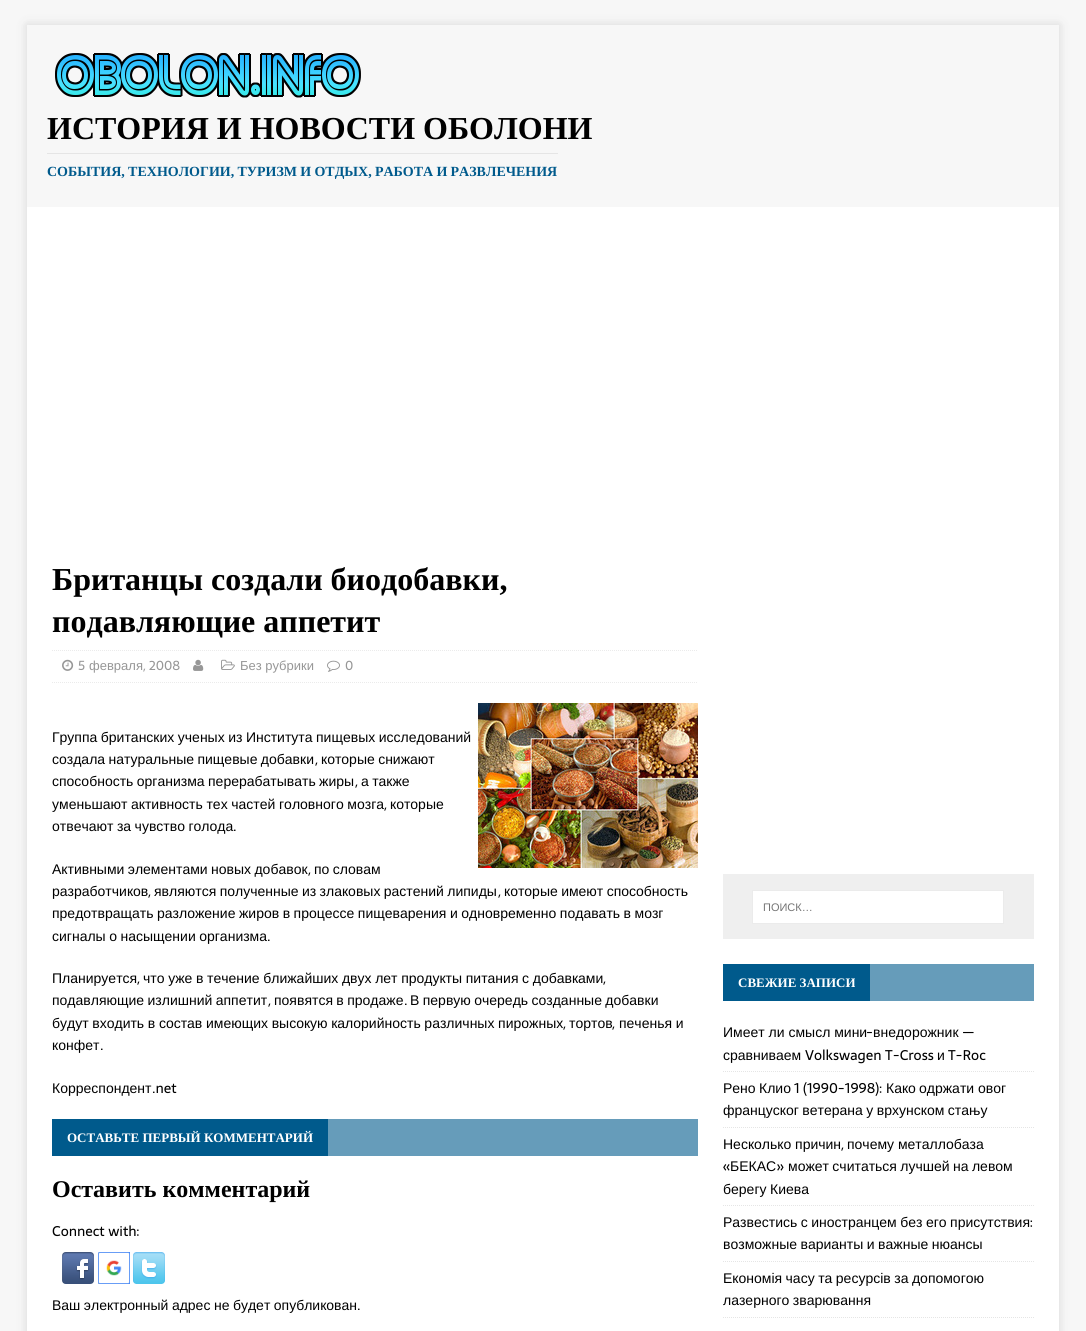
import math
import cairo

surface = cairo.ImageSurface(cairo.FORMAT_RGB24, 1086, 1331)
c = cairo.Context(surface)
options = cairo.FontOptions()
options.set_hint_metrics(cairo.HINT_METRICS_OFF)
options.set_hint_style(cairo.HINT_STYLE_NONE)
c.set_font_options(options)
c.set_miter_limit(4)
def C(code):
 c.set_source_rgb(*(v / 255 for v in bytes.fromhex(code[-6:])))
def F(family, size, italic, bold):
 c.select_font_face(family, cairo.FONT_SLANT_ITALIC if italic else cairo.FONT_SLANT_NORMAL, cairo.FONT_WEIGHT_BOLD if bold else cairo.FONT_WEIGHT_NORMAL)
 c.set_font_size(size)
def T(x, y, s):
 c.move_to(x, y)
 c.show_text(s)
def L(x, y, s, letter, word):
 c.move_to(x, y)
 for ch in s:
  c.show_text(ch)
  c.rel_move_to(letter + word * (ch == ' '), 0)
def R(x, y, w, h):
 c.rectangle(x, y, w, h)
 c.fill()
def Q(x, y, w, h, r):
 c.new_sub_path()
 for i, (u, v) in enumerate([(x + w - r, y + h - r), (x + r, y + h - r), (x + r, y + r), (x + w - r, y + r)]):
  c.arc(u, v, r, i * math.pi / 2, (i + 1) * math.pi / 2)
 c.close_path()
def S(x, y, w, h, r, blur, alpha):
 c.push_group_with_content(cairo.CONTENT_ALPHA)
 c.set_operator(cairo.OPERATOR_SOURCE)
 for i in range(15, -16, -2):
  e = blur * i / 6
  if min(w, h) + 2 * e > 0:
   c.set_source_rgba(0, 0, 0, alpha * math.erfc((i - 1) / 8.5) / 2)
   Q(x - e, y - e, w + 2 * e, h + 2 * e, max(0, min(r + e + blur * .6, min(w, h) / 2 + e)))
   c.fill()
 c.mask(c.pop_group())
def I(path, x, y, w, h):
 c.save()
 c.set_source_surface(cairo.ImageSurface.create_from_png(path), x, y)
 c.rectangle(x, y, w, h)
 c.fill()
 c.restore()
C('f7f7f7')
c.paint()
c.save()
c.set_fill_rule(cairo.FILL_RULE_EVEN_ODD)
c.new_path()
c.move_to(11,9)
c.line_to(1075,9)
c.line_to(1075,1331)
c.line_to(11,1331)
c.close_path()
c.move_to(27,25)
c.line_to(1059,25)
c.line_to(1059,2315)
c.line_to(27,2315)
c.close_path()
c.clip()
C('323232')
S(27,25,1032,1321,0,5,.17)
c.restore()
I('1.png',55,53,306,45)
F('Liberation Serif',32,0,1)
C('000000')
T(47,139,'ИСТОРИЯ И НОВОСТИ ОБОЛОНИ')
C('e5e5e5')
R(47,153,511,1)
F('Liberation Serif',14,0,1)
C('005a8c')
L(47,176,'СОБЫТИЯ, ТЕХНОЛОГИИ, ТУРИЗМ И ОТДЫХ, РАБОТА И РАЗВЛЕЧЕНИЯ',0,-.25)
C('ffffff')
R(27,207,1032,1124)
F('Liberation Serif',32,0,1)
C('000000')
T(52,590,'Британцы создали биодобавки,')
T(52,632,'подавляющие аппетит')
c.new_path()
c.move_to(52,650.5)
c.line_to(698,650.5)
C('ebebeb')
c.set_line_width(1)
c.set_dash([1,1])
c.stroke()
c.new_path()
c.move_to(52,682.5)
c.line_to(698,682.5)
c.stroke()
I('2.png',62,659,12,12)
F('Sarala',13,0,0)
C('979797')
T(78,670,'5')
F('Liberation Sans',13,0,0)
T(89,670,'февраля')
F('Sarala',13,0,0)
T(143,670,', 2008')
I('3.png',193,659,11,12)
I('4.png',221,659,14,11)
F('Liberation Sans',13,0,0)
T(240,670,'Без рубрики')
I('5.png',327,660,13,12)
F('Sarala',13,0,0)
T(345,670,'0')
F('Liberation Sans',14,0,0)
C('000000')
L(52,742,'Группа британских ученых из Института пищевых исследований',0,-.4)
I('6.png',478,703,220,165)
L(52,764,'создала натуральные пищевые добавки',0,-.5)
F('Sarala',14,0,0)
T(315,764,',')
F('Liberation Sans',14,0,0)
L(321,764,'которые снижают',0,-.5)
L(52,786,'способность организма перерабатывать жиры',0,-.5)
F('Sarala',14,0,0)
T(355,786,',')
F('Liberation Sans',14,0,0)
L(361,786,'а также',0,-.5)
L(52,809,'уменьшают активность тех частей головного мозга',0,-.25)
F('Sarala',14,0,0)
T(384,809,',')
F('Liberation Sans',14,0,0)
T(390,809,'которые')
L(52,831,'отвечают за чувство голода',0,-.4)
F('Sarala',14,0,0)
T(233,831,'.')
F('Liberation Sans',14,0,0)
L(52,874,'Активными элементами новых добавок',0,-.5)
F('Sarala',14,0,0)
T(308,874,',')
F('Liberation Sans',14,0,0)
L(314,874,'по словам',0,-.5)
T(52,896,'разработчиков')
F('Sarala',14,0,0)
T(148,896,',')
F('Liberation Sans',14,0,0)
L(154,896,'являются полученные из злаковых растений липиды',0,-.5)
F('Sarala',14,0,0)
T(498,896,',')
F('Liberation Sans',14,0,0)
L(504,896,'которые имеют способность',0,-.5)
L(52,918,'предотвращать разложение жиров в процессе пищеварения и одновременно подавать в мозг',0,-.4)
L(52,941,'сигналы о насыщении организма',0,-.4)
F('Sarala',14,0,0)
T(267,941,'.')
F('Liberation Sans',14,0,0)
T(52,983,'Планируется')
F('Sarala',14,0,0)
T(137,983,',')
F('Liberation Sans',14,0,0)
L(143,983,'что уже в течение ближайших двух лет продукты питания с добавками',0,-.25)
F('Sarala',14,0,0)
T(603,983,',')
F('Liberation Sans',14,0,0)
L(52,1005,'подавляющие излишний аппетит',0,-.5)
F('Sarala',14,0,0)
T(268,1005,',')
F('Liberation Sans',14,0,0)
L(274,1005,'появятся в продаже',0,-.5)
F('Sarala',14,0,0)
T(404,1005,'.')
F('Liberation Sans',14,0,0)
L(410,1005,'В первую очередь созданные добавки',0,-.5)
L(52,1028,'будут входить в состав имеющих высокую калорийность различных пирожных',0,-.25)
F('Sarala',14,0,0)
T(563,1028,',')
F('Liberation Sans',14,0,0)
T(569,1028,'тортов')
F('Sarala',14,0,0)
T(612,1028,',')
F('Liberation Sans',14,0,0)
L(619,1028,'печенья и',0,-.25)
T(52,1050,'конфет')
F('Sarala',14,0,0)
T(100,1050,'.')
F('Liberation Sans',14,0,0)
T(52,1093,'Корреспондент')
F('Sarala',14,0,0)
T(152,1093,'.net')
C('669cba')
R(328,1119,370,37)
C('005a8c')
R(52,1119,276,37)
F('Liberation Serif',13,0,1)
C('ffffff')
T(67,1142,'ОСТАВЬТЕ ПЕРВЫЙ КОММЕНТАРИЙ')
F('Liberation Serif',24,0,1)
C('000000')
T(52,1197,'Оставить комментарий')
F('Sarala',14,0,0)
T(52,1236,'Connect with:')
I('7.png',62,1252,32,32)
I('8.png',98,1252,32,32)
I('9.png',133,1252,32,32)
F('Liberation Sans',14,0,0)
L(52,1310,'Ваш электронный адрес не будет опубликован',0,-.4)
F('Sarala',14,0,0)
T(357,1310,'.')
C('efefef')
R(723,874,311,65)
C('ffffff')
c.rectangle(752.5,890.5,251,33)
c.fill_preserve()
C('ebebeb')
c.set_dash([])
c.stroke()
F('Liberation Sans',11,0,0)
C('757575')
T(763,911,'ПОИСК…')
C('669cba')
R(870,964,164,37)
C('005a8c')
R(723,964,147,37)
F('Liberation Serif',13,0,1)
C('ffffff')
T(738,987,'СВЕЖИЕ ЗАПИСИ')
c.new_path()
c.move_to(723,1071.5)
c.line_to(1034,1071.5)
C('e5e5e5')
c.set_dash([1,1])
c.stroke()
F('Liberation Sans',14,0,0)
C('000000')
T(723,1037,'Имеет ли смысл мини')
F('Sarala',14,0,0)
T(866,1037,'-')
F('Liberation Sans',14,0,0)
T(873,1037,'внедорожник')
F('Sarala',14,0,0)
T(962,1037,'—')
F('Liberation Sans',14,0,0)
T(723,1060,'сравниваем')
F('Sarala',14,0,0)
T(805,1060,'Volkswagen T-Cross')
F('Liberation Sans',14,0,0)
T(937,1060,'и')
F('Sarala',14,0,0)
T(948,1060,'T-Roc')
c.new_path()
c.move_to(723,1127.5)
c.line_to(1034,1127.5)
C('e5e5e5')
c.stroke()
F('Liberation Sans',14,0,0)
C('000000')
T(723,1093,'Рено')
T(759,1093,'Клио')
F('Sarala',14,0,0)
T(794,1093,'1 (1990-1998):')
F('Liberation Sans',14,0,0)
T(886,1093,'Како')
T(919,1093,'одржати')
T(978,1093,'овог')
L(723,1115,'француског ветерана у врхунском стању',0,-.4)
c.new_path()
c.move_to(723,1205.5)
c.line_to(1034,1205.5)
C('e5e5e5')
c.stroke()
C('000000')
T(723,1149,'Несколько причин')
F('Sarala',14,0,0)
T(841,1149,',')
F('Liberation Sans',14,0,0)
T(847,1149,'почему металлобаза')
F('Sarala',14,0,0)
T(723,1171,'«')
F('Liberation Sans',14,0,0)
T(730,1171,'БЕКАС')
F('Sarala',14,0,0)
T(776,1171,'»')
F('Liberation Sans',14,0,0)
L(788,1171,'может считаться лучшей на левом',0,-.5)
L(723,1194,'берегу Киева',0,-.4)
c.new_path()
c.move_to(723,1261.5)
c.line_to(1034,1261.5)
C('e5e5e5')
c.stroke()
C('000000')
L(723,1227,'Развестись с иностранцем без его присутствия',0,-.4)
F('Sarala',14,0,0)
T(1030,1227,':')
F('Liberation Sans',14,0,0)
L(723,1249,'возможные варианты и важные нюансы',0,-.4)
c.new_path()
c.move_to(723,1317.5)
c.line_to(1034,1317.5)
C('e5e5e5')
c.stroke()
C('000000')
L(723,1283,'Економія часу та ресурсів за допомогою',0,-.4)
L(723,1305,'лазерного зварювання',0,-.4)
surface.write_to_png('o.png')
